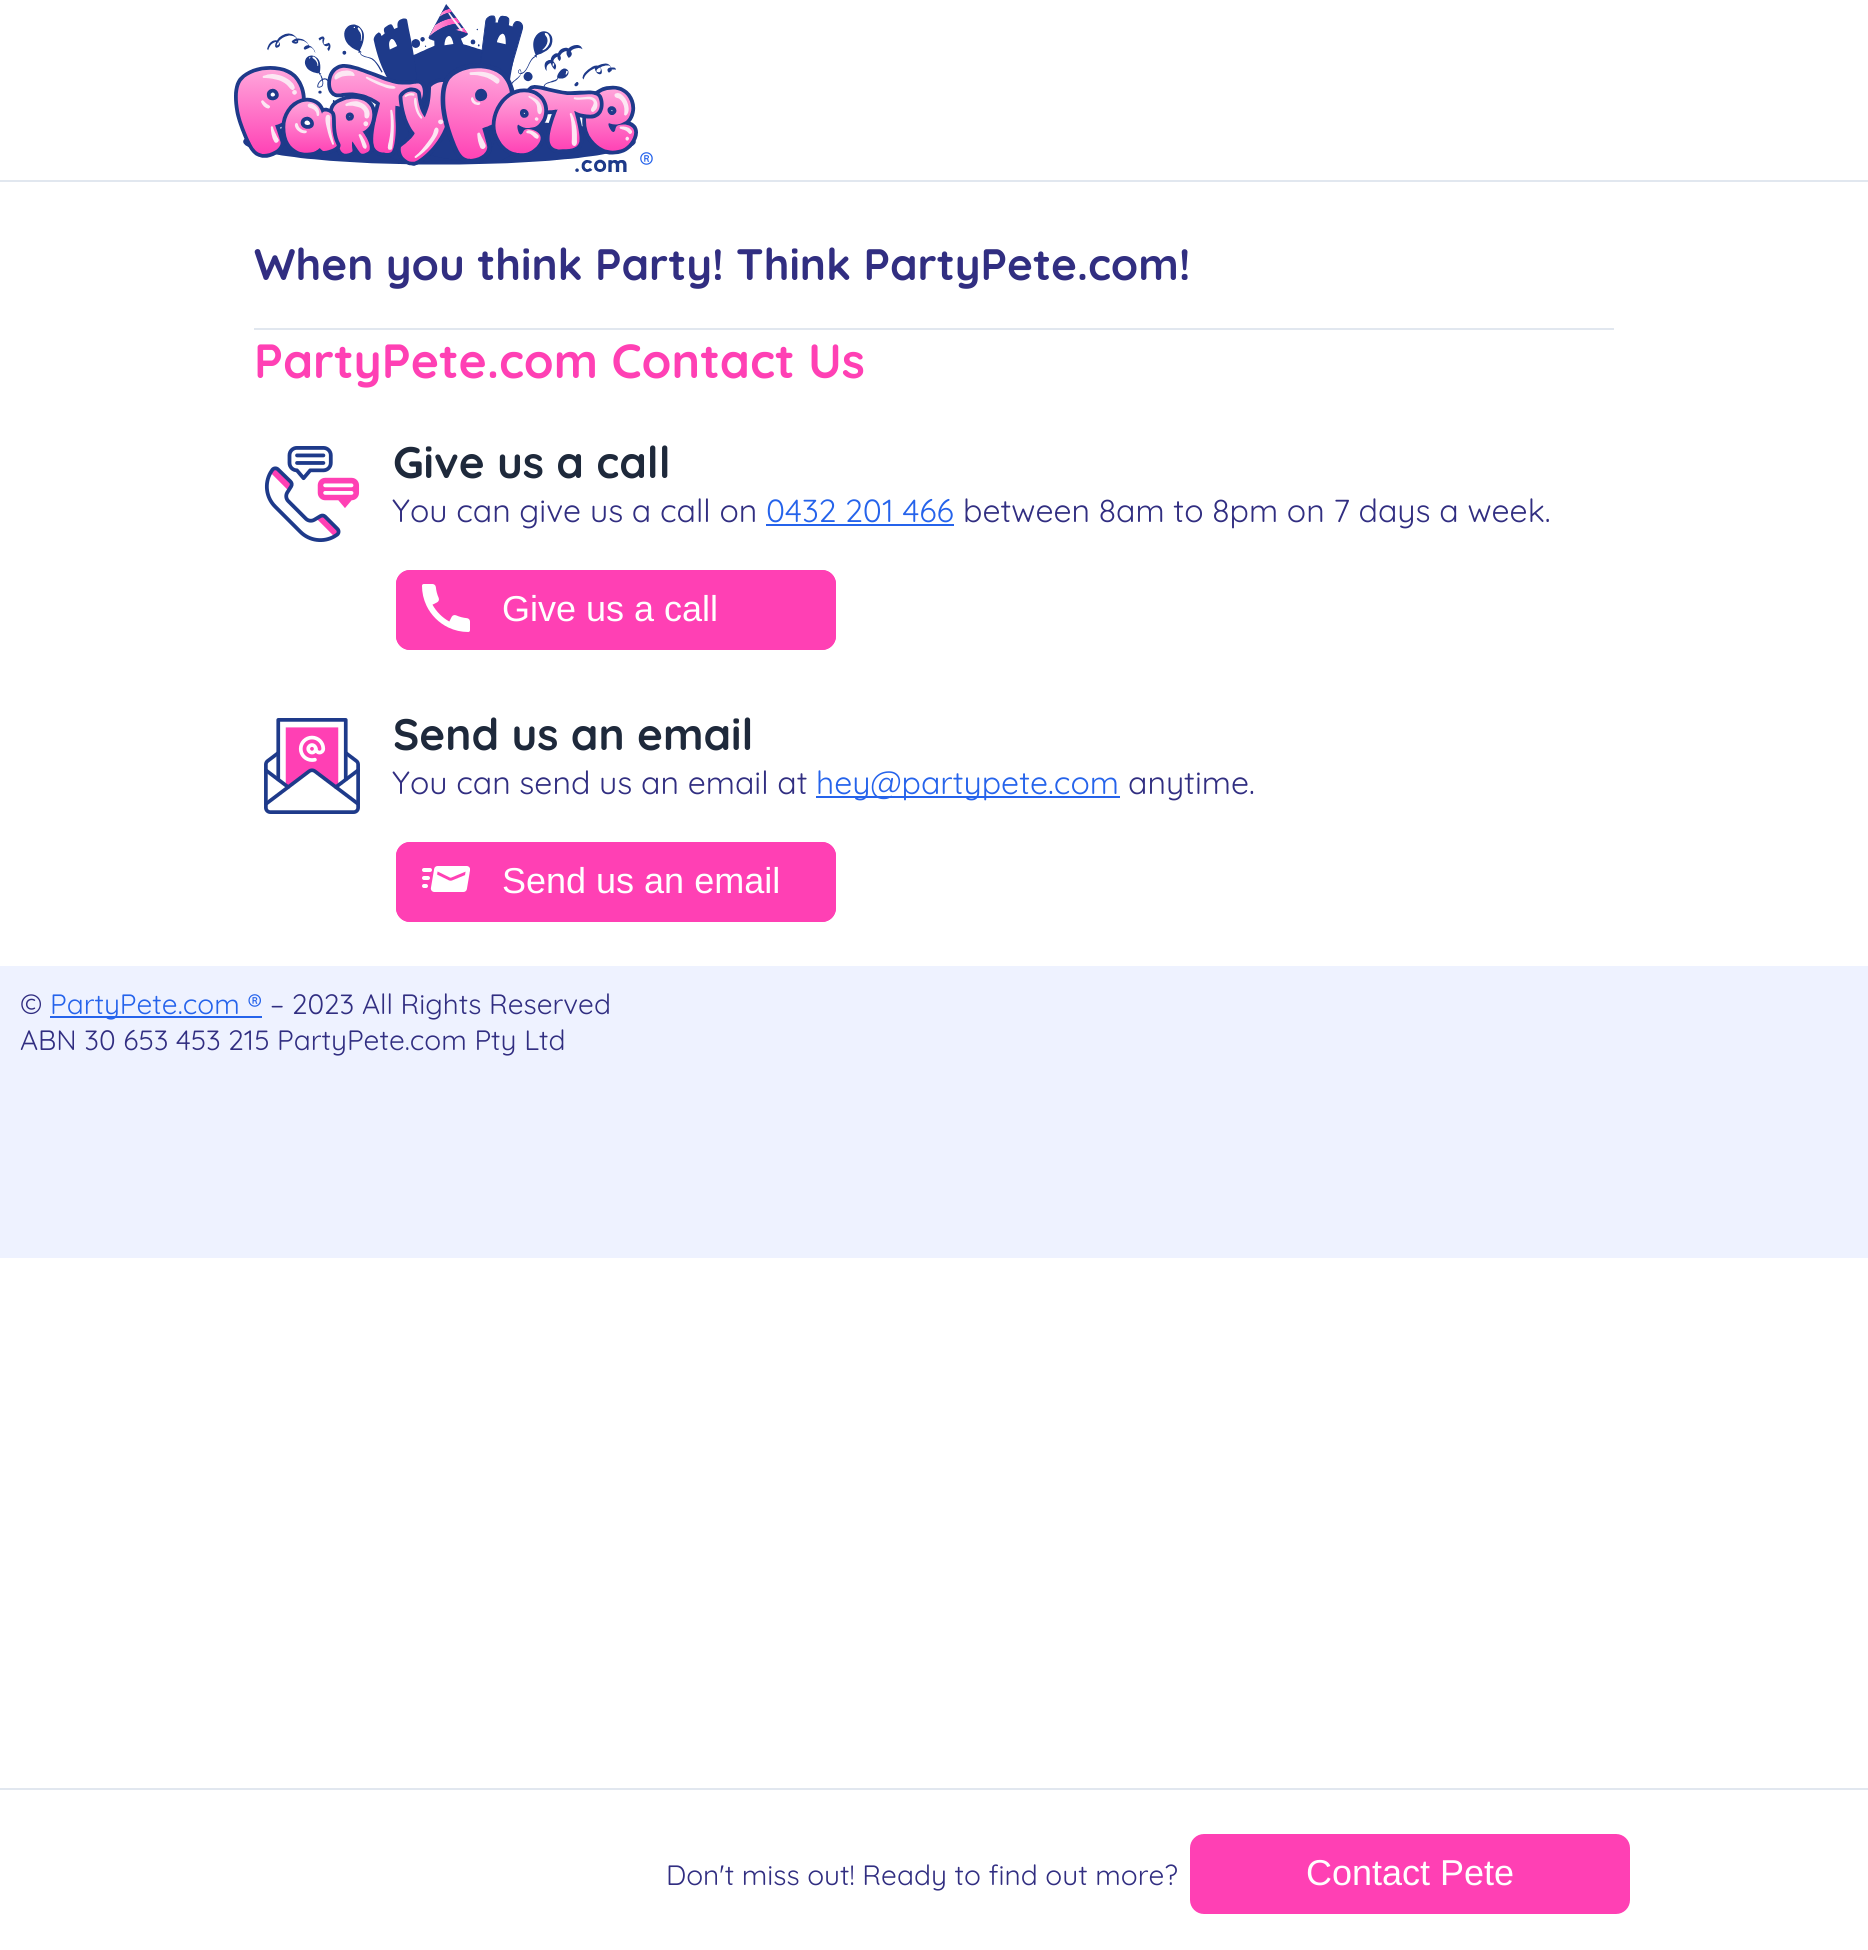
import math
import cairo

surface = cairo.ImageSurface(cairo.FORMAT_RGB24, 1868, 1950)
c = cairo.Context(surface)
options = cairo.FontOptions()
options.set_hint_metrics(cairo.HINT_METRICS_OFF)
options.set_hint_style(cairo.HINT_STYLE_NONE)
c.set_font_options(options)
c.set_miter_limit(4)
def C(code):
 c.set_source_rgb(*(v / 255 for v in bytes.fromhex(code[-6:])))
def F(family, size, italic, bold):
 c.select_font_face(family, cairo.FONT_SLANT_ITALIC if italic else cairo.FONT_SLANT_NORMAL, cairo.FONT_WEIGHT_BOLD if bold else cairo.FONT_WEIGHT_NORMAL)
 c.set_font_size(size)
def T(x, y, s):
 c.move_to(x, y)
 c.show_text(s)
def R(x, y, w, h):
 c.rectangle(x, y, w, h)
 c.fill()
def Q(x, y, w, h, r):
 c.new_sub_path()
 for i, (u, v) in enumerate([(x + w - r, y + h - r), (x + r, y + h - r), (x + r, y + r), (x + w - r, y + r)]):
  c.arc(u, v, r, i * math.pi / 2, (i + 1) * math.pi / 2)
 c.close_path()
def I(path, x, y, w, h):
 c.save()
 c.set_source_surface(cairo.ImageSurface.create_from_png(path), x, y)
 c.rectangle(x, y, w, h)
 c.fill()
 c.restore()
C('ffffff')
c.paint()
I('1.png',234,4,404,168)
F('Quicksand',28,0,0)
C('2563eb')
T(639,172,'®')
C('e1e7ef')
R(0,180,1868,2)
F('Quicksand',44,0,1)
C('312e81')
T(254,280,'When you think Party! Think PartyPete.com!')
C('e1e7ef')
R(254,328,1360,2)
F('Quicksand',48,0,1)
C('ff40b4')
T(254,378,'PartyPete.com Contact Us')
I('2.png',264,446,96,96)
F('Quicksand',44,0,1)
C('1e293b')
T(393,478,'Give us a call')
F('Quicksand',32,0,0)
C('312e81')
T(392,522,'You can give us a call on')
C('2563eb')
T(766,522,'0432 201 466')
R(766,524,188,2)
C('312e81')
T(963,522,'between 8am to 8pm on 7 days a week.')
C('ff40b4')
Q(396,570,440,80,14)
c.fill()
I('3.png',422,584,48,48)
Q(397,571,438,78,13)
c.stroke()
F('Liberation Sans',36,0,0)
C('ffffff')
T(502,621,'Give us a call')
I('4.png',264,718,96,96)
F('Quicksand',44,0,1)
C('1e293b')
T(393,750,'Send us an email')
F('Quicksand',32,0,0)
C('312e81')
T(392,794,'You can send us an email at')
C('2563eb')
R(816,796,304,2)
T(816,794,'hey@partypete.com')
C('312e81')
T(1128,794,'anytime.')
C('ff40b4')
Q(396,842,440,80,14)
c.fill()
I('5.png',422,866,48,26)
Q(397,843,438,78,13)
c.stroke()
F('Liberation Sans',36,0,0)
C('ffffff')
T(502,893,'Send us an email')
C('eef2ff')
R(0,966,1868,292)
F('Quicksand',28,0,0)
C('312e81')
T(20,1014,'©')
C('2563eb')
R(50,1016,212,2)
T(50,1014,'PartyPete.com ®')
C('312e81')
T(270,1014,'– 2023 All Rights Reserved')
T(20,1050,'ABN 30 653 453 215 PartyPete.com Pty Ltd')
C('e1e7ef')
R(0,1788,1868,2)
C('312e81')
T(666,1885,'Don\'t miss out! Ready to find out more?')
C('ff40b4')
Q(1191,1835,438,78,13)
c.fill_preserve()
c.stroke()
F('Liberation Sans',36,0,0)
C('ffffff')
T(1306,1885,'Contact Pete')
surface.write_to_png('o.png')
